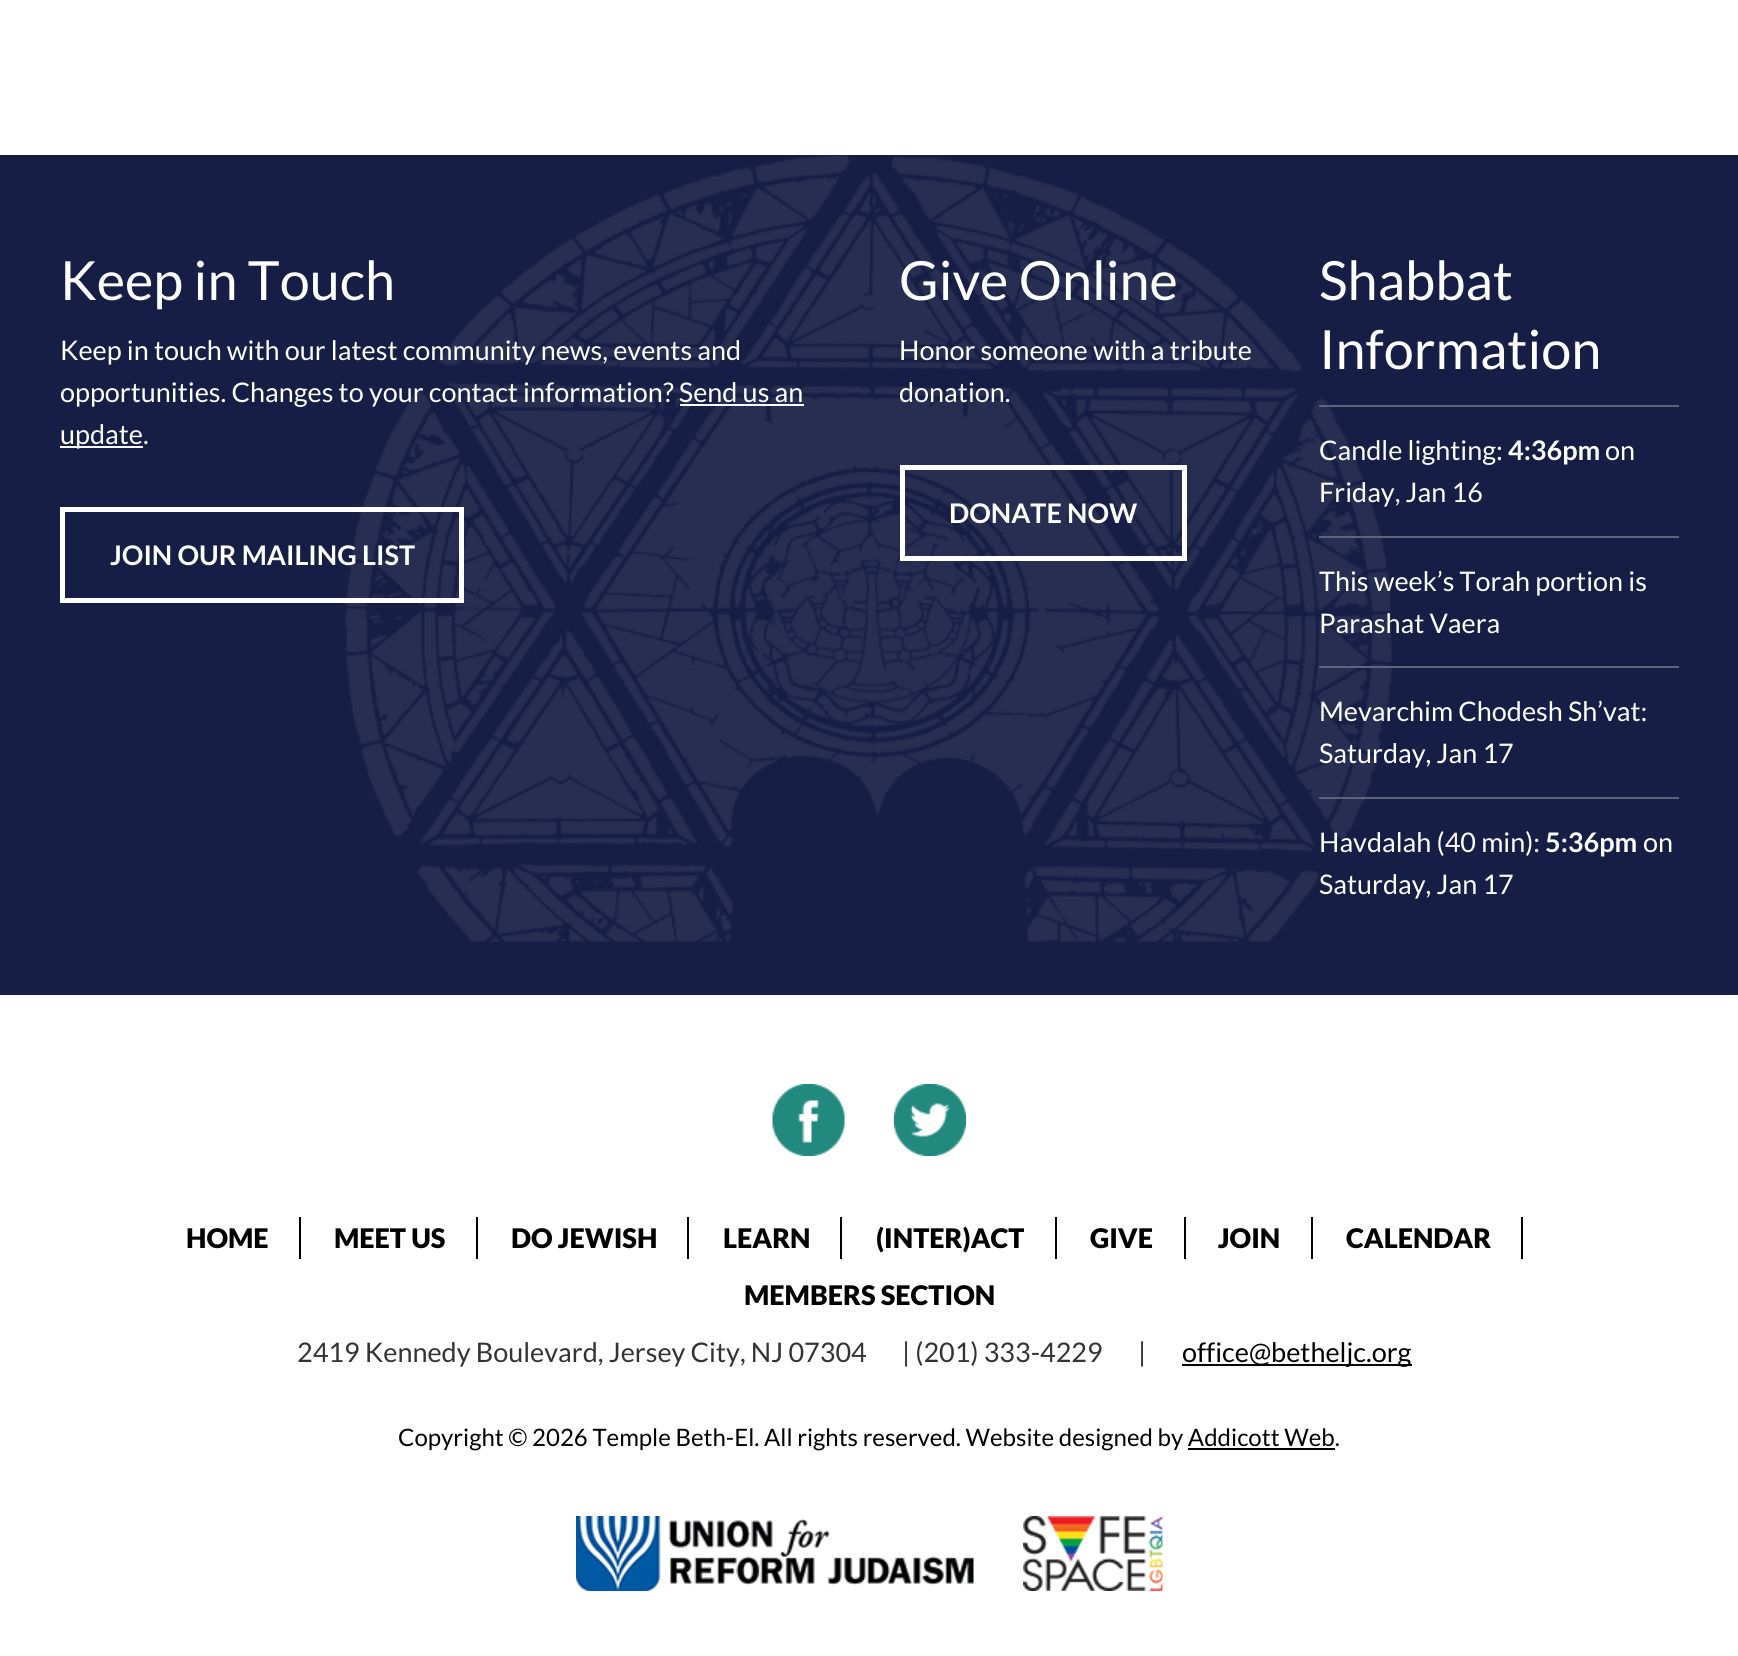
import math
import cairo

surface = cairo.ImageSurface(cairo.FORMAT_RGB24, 1738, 1656)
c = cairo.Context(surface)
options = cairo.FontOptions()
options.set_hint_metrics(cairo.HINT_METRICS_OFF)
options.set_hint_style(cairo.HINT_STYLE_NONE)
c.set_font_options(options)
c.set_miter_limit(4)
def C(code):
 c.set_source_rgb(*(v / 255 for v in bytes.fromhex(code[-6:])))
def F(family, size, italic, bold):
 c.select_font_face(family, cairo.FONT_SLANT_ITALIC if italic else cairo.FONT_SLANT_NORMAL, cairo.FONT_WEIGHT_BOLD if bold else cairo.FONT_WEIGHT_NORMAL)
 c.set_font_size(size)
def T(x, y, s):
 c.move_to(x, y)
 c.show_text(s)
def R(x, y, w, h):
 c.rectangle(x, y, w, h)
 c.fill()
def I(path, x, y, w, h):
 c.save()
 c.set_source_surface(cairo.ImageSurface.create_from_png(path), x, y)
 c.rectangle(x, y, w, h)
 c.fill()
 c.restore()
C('ffffff')
c.paint()
C('171e45')
R(0,155,1738,840)
I('1.png',345,155,1047,787)
F('Lato',54,0,0)
C('ffffff')
T(60,300,'Keep in Touch')
F('Lato',27,0,0)
T(60,360,'Keep in touch with our latest community news, events and')
T(60,402,'opportunities. Changes to your contact information? Send us an')
R(60,446,83,2)
T(60,444,'update.')
R(680,404,124,2)
c.rectangle(62.5,509.5,399,91)
c.set_line_width(5)
c.stroke()
F('Lato',27,0,1)
T(110,565,'JOIN OUR MAILING LIST')
F('Lato',54,0,0)
T(899,300,'Give Online')
F('Lato',27,0,0)
T(899,360,'Honor someone with a tribute')
T(899,402,'donation.')
c.rectangle(902.5,467.5,282,91)
c.stroke()
F('Lato',27,0,1)
T(949,523,'DONATE NOW')
F('Lato',54,0,0)
T(1319,300,'Shabbat')
T(1319,369,'Information')
C('5d627d')
R(1319,405,360,2)
F('Lato',27,0,0)
C('ffffff')
T(1319,460,'Candle lighting:')
F('Lato',27,0,1)
T(1508,460,'4:36pm')
F('Lato',27,0,0)
T(1605,460,'on')
T(1319,502,'Friday, Jan 16')
C('5d627d')
R(1319,536,360,2)
C('ffffff')
T(1319,591,'This week’s Torah portion is')
T(1319,633,'Parashat Vaera')
C('5d627d')
R(1319,666,360,2)
C('ffffff')
T(1319,721,'Mevarchim Chodesh Sh’vat:')
T(1319,763,'Saturday, Jan 17')
C('5d627d')
R(1319,797,360,2)
C('ffffff')
T(1319,852,'Havdalah (40 min):')
F('Lato',27,0,1)
T(1545,852,'5:36pm')
F('Lato',27,0,0)
T(1643,852,'on')
T(1319,894,'Saturday, Jan 17')
I('2.png',772,1084,73,72)
I('3.png',894,1084,72,72)
C('000000')
R(299,1217,2,42)
F('Lato Black',27,0,0)
T(186,1248,'HOME')
R(476,1217,2,42)
T(334,1248,'MEET US')
R(687,1217,2,42)
T(511,1248,'DO JEWISH')
R(840,1217,2,42)
T(723,1248,'LEARN')
R(1055,1217,2,42)
T(876,1248,'(INTER)ACT')
R(1184,1217,2,42)
T(1090,1248,'GIVE')
R(1311,1217,2,42)
T(1218,1248,'JOIN')
R(1521,1217,2,42)
T(1346,1248,'CALENDAR')
T(744,1305,'MEMBERS SECTION')
F('Lato',27,0,0)
C('333333')
T(297,1362,'2419 Kennedy Boulevard, Jersey City, NJ 07304')
T(902,1362,'| (201) 333-4229')
T(1138,1362,'|')
C('000000')
R(1182,1364,230,2)
T(1182,1362,'office@betheljc.org')
F('Lato',24,0,0)
T(398,1446,'Copyright © 2026 Temple Beth-El. All rights reserved. Website designed by Addicott Web.')
R(1188,1448,147,2)
I('4.png',576,1516,398,75)
I('5.png',1023,1516,140,75)
surface.write_to_png('o.png')
